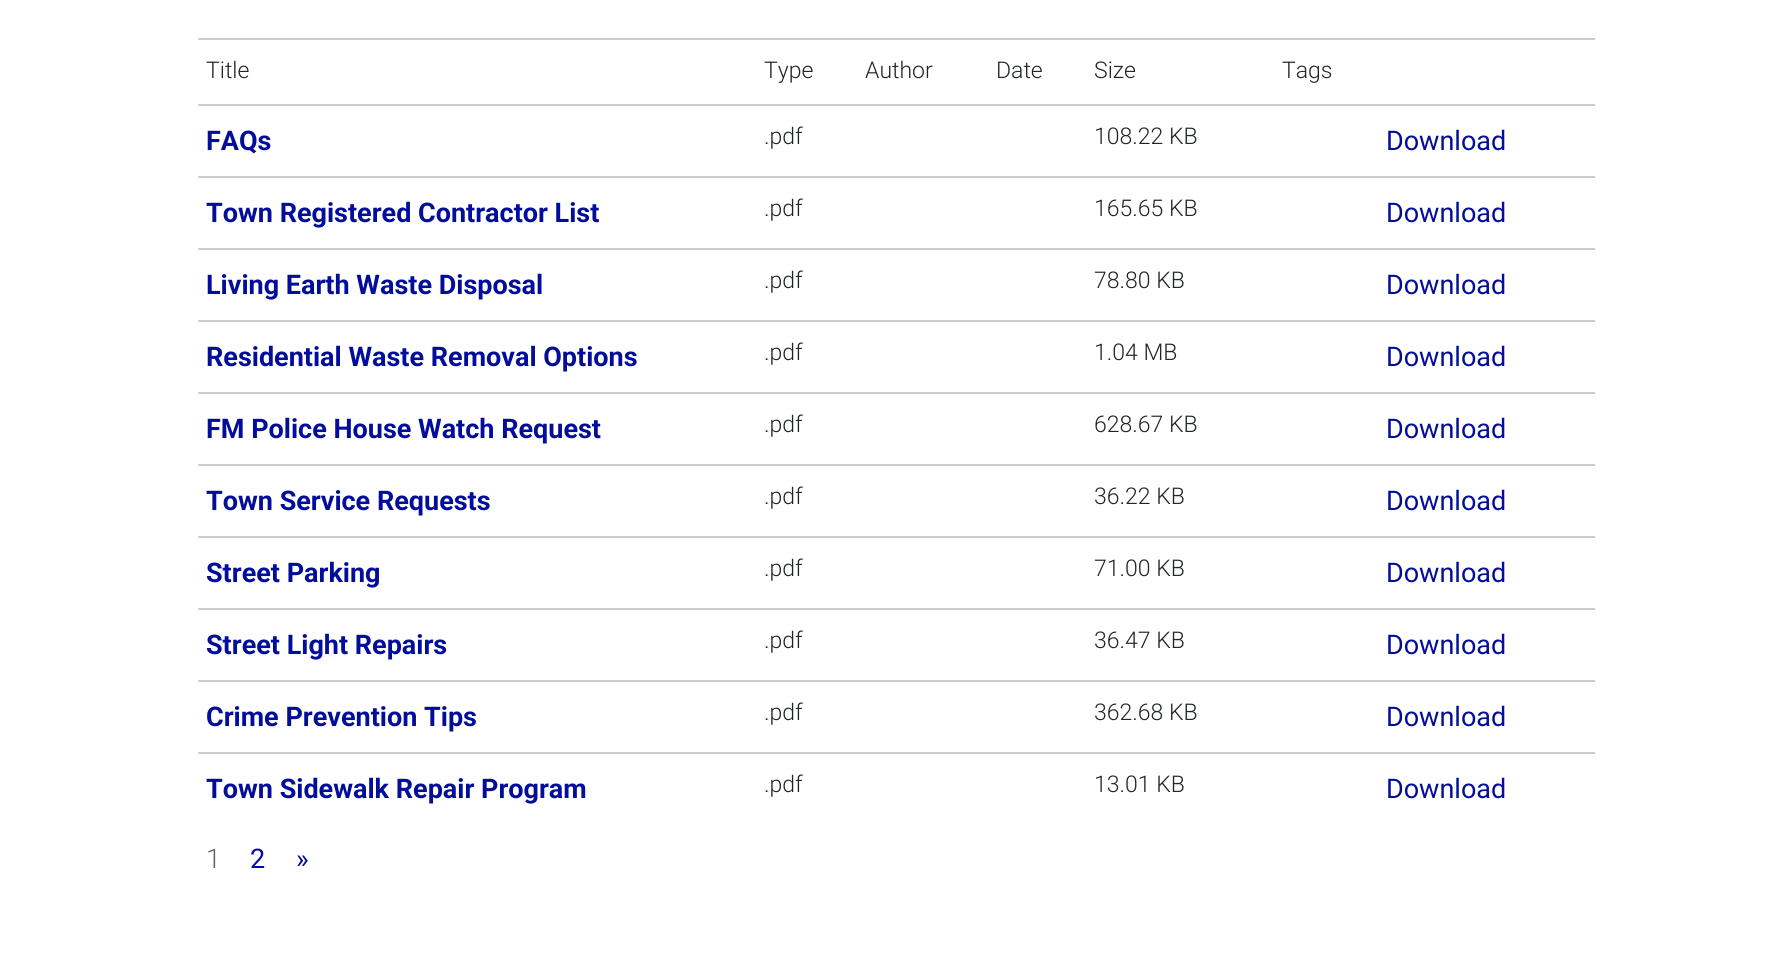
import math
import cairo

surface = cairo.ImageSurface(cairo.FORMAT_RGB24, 1791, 963)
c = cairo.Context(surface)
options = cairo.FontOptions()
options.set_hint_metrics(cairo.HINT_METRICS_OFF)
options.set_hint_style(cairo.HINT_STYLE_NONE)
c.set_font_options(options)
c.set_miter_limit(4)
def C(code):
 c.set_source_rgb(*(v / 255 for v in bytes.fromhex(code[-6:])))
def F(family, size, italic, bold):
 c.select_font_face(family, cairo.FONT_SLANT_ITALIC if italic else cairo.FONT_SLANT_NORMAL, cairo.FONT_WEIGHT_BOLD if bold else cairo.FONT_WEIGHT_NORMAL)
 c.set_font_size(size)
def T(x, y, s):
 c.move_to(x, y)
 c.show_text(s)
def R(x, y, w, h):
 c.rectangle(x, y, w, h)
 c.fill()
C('ffffff')
c.paint()
C('cccccc')
R(198,38,1397,2)
F('Roboto Light',23,0,0)
C('212529')
T(206,78,'Title')
T(764,78,'Type')
T(865,78,'Author')
T(996,78,'Date')
T(1094,78,'Size')
T(1282,78,'Tags')
F('Roboto',27,0,1)
C('020d9c')
T(206,150,'FAQs')
F('Roboto Light',23,0,0)
C('212529')
T(764,144,'.pdf')
T(1094,144,'108.22 KB')
C('cccccc')
R(198,104,1397,2)
F('Roboto',27,0,0)
C('020d9c')
T(1386,150,'Download')
F('Roboto',27,0,1)
T(206,222,'Town Registered Contractor List')
F('Roboto Light',23,0,0)
C('212529')
T(764,216,'.pdf')
T(1094,216,'165.65 KB')
C('cccccc')
R(198,176,1397,2)
F('Roboto',27,0,0)
C('020d9c')
T(1386,222,'Download')
F('Roboto',27,0,1)
T(206,294,'Living Earth Waste Disposal')
F('Roboto Light',23,0,0)
C('212529')
T(764,288,'.pdf')
T(1094,288,'78.80 KB')
C('cccccc')
R(198,248,1397,2)
F('Roboto',27,0,0)
C('020d9c')
T(1386,294,'Download')
F('Roboto',27,0,1)
T(206,366,'Residential Waste Removal Options')
F('Roboto Light',23,0,0)
C('212529')
T(764,360,'.pdf')
T(1094,360,'1.04 MB')
C('cccccc')
R(198,320,1397,2)
F('Roboto',27,0,0)
C('020d9c')
T(1386,366,'Download')
F('Roboto',27,0,1)
T(206,438,'FM Police House Watch Request')
F('Roboto Light',23,0,0)
C('212529')
T(764,432,'.pdf')
T(1094,432,'628.67 KB')
C('cccccc')
R(198,392,1397,2)
F('Roboto',27,0,0)
C('020d9c')
T(1386,438,'Download')
F('Roboto',27,0,1)
T(206,510,'Town Service Requests')
F('Roboto Light',23,0,0)
C('212529')
T(764,504,'.pdf')
T(1094,504,'36.22 KB')
C('cccccc')
R(198,464,1397,2)
F('Roboto',27,0,0)
C('020d9c')
T(1386,510,'Download')
F('Roboto',27,0,1)
T(206,582,'Street Parking')
F('Roboto Light',23,0,0)
C('212529')
T(764,576,'.pdf')
T(1094,576,'71.00 KB')
C('cccccc')
R(198,536,1397,2)
F('Roboto',27,0,0)
C('020d9c')
T(1386,582,'Download')
F('Roboto',27,0,1)
T(206,654,'Street Light Repairs')
F('Roboto Light',23,0,0)
C('212529')
T(764,648,'.pdf')
T(1094,648,'36.47 KB')
C('cccccc')
R(198,608,1397,2)
F('Roboto',27,0,0)
C('020d9c')
T(1386,654,'Download')
F('Roboto',27,0,1)
T(206,726,'Crime Prevention Tips')
F('Roboto Light',23,0,0)
C('212529')
T(764,720,'.pdf')
T(1094,720,'362.68 KB')
C('cccccc')
R(198,680,1397,2)
F('Roboto',27,0,0)
C('020d9c')
T(1386,726,'Download')
F('Roboto',27,0,1)
T(206,798,'Town Sidewalk Repair Program')
F('Roboto Light',23,0,0)
C('212529')
T(764,792,'.pdf')
T(1094,792,'13.01 KB')
C('cccccc')
R(198,752,1397,2)
F('Roboto',27,0,0)
C('020d9c')
T(1386,798,'Download')
F('Roboto Light',27,0,0)
C('666666')
T(206,868,'1')
F('Roboto',27,0,0)
C('020d9c')
T(250,868,'2')
T(296,868,'»')
surface.write_to_png('o.png')
